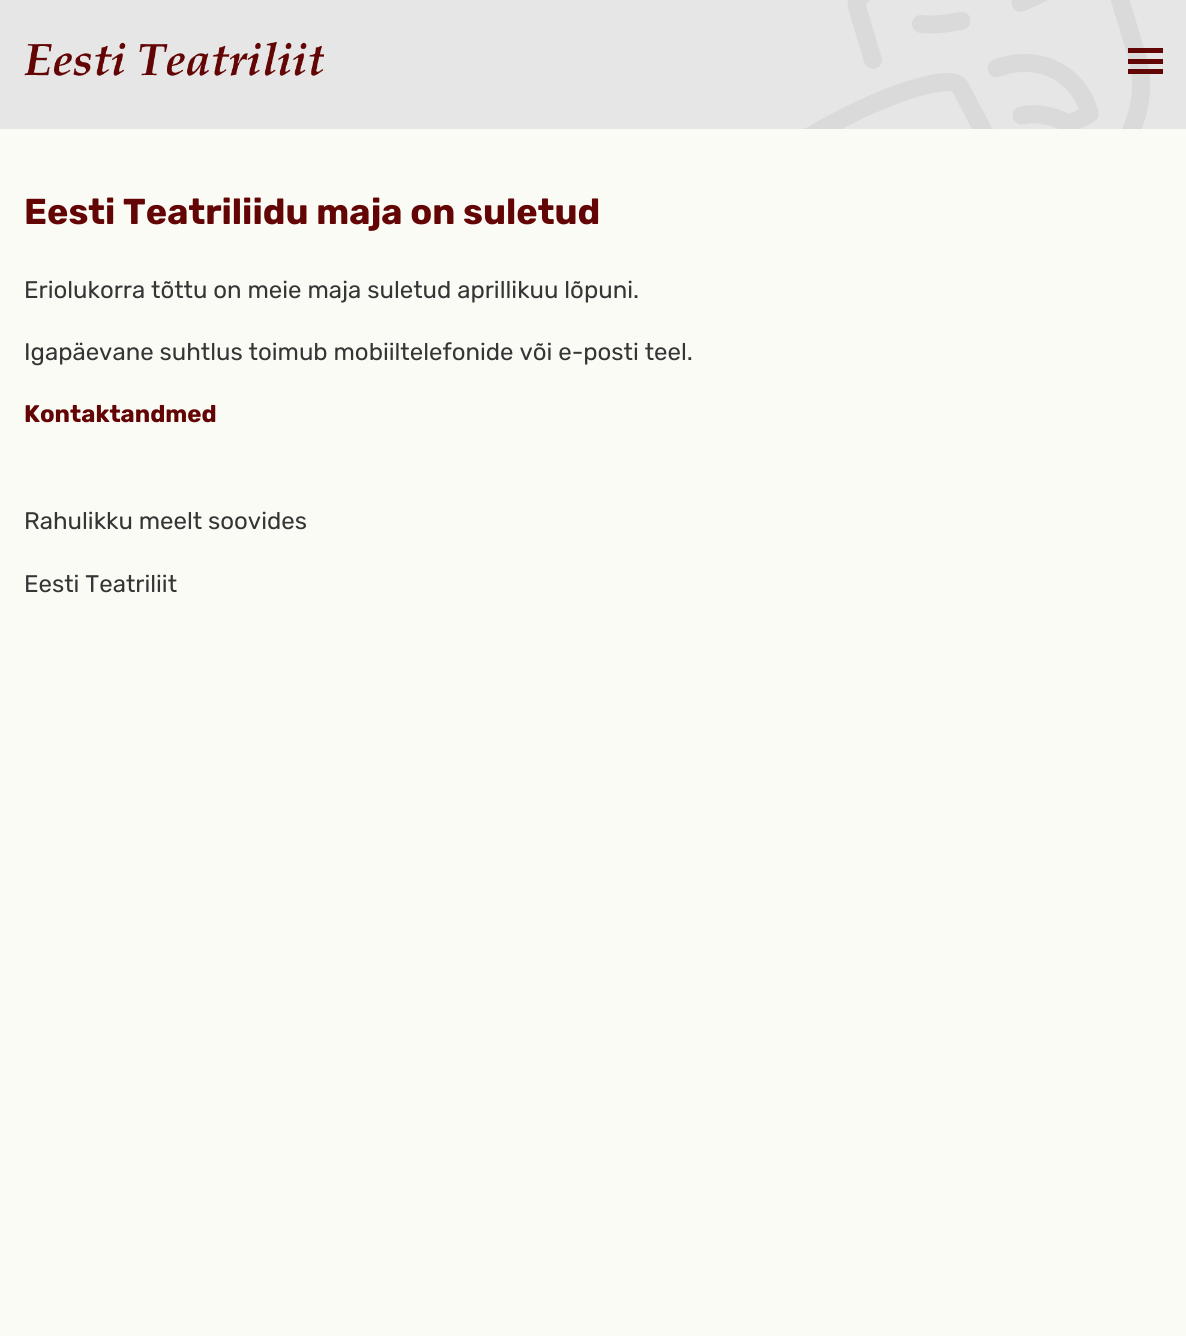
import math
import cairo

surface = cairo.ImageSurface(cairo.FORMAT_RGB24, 1186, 1336)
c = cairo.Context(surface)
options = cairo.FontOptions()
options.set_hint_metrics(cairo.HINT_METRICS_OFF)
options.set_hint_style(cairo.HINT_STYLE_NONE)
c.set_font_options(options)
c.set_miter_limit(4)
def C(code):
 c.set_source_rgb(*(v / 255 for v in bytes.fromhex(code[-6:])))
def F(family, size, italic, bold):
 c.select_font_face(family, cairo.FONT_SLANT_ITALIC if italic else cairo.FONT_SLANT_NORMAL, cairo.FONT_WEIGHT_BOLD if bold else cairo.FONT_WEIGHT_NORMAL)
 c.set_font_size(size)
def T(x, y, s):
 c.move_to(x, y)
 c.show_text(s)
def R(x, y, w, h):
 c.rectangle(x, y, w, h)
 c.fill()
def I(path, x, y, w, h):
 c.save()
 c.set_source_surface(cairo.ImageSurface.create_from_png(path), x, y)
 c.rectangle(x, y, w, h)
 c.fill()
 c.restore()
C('fbfbf6')
c.paint()
C('e6e6e6')
R(0,0,1186,129)
I('1.png',805,0,345,129)
I('2.png',24,42,300,34)
C('640505')
R(1128,48,35,5)
R(1128,59,35,5)
R(1128,69,35,5)
F('Rubik',36,0,1)
T(24,224,'Eesti Teatriliidu maja on suletud')
F('Rubik',24,0,0)
C('363535')
T(24,298,'Eriolukorra tõttu on meie maja suletud aprillikuu lõpuni.')
T(24,360,'Igapäevane suhtlus toimub mobiiltelefonide või e-posti teel.')
F('Rubik',24,0,1)
C('640505')
T(24,422,'Kontaktandmed')
F('Rubik',24,0,0)
C('363535')
T(24,529,'Rahulikku meelt soovides')
T(24,592,'Eesti Teatriliit')
surface.write_to_png('o.png')
